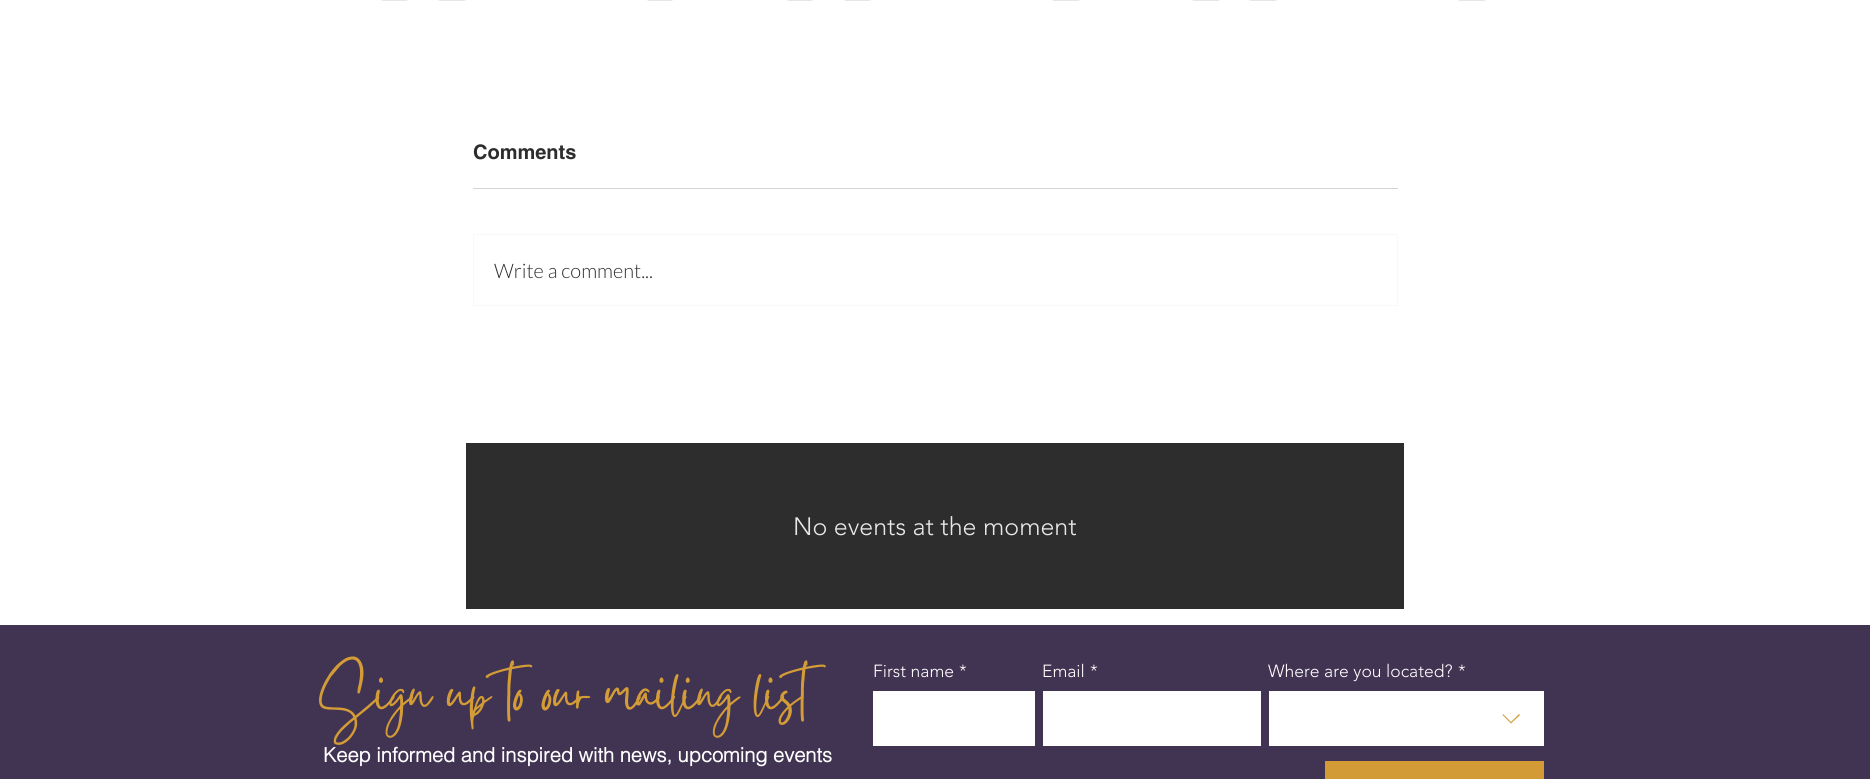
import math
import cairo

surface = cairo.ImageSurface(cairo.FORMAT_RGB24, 1870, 779)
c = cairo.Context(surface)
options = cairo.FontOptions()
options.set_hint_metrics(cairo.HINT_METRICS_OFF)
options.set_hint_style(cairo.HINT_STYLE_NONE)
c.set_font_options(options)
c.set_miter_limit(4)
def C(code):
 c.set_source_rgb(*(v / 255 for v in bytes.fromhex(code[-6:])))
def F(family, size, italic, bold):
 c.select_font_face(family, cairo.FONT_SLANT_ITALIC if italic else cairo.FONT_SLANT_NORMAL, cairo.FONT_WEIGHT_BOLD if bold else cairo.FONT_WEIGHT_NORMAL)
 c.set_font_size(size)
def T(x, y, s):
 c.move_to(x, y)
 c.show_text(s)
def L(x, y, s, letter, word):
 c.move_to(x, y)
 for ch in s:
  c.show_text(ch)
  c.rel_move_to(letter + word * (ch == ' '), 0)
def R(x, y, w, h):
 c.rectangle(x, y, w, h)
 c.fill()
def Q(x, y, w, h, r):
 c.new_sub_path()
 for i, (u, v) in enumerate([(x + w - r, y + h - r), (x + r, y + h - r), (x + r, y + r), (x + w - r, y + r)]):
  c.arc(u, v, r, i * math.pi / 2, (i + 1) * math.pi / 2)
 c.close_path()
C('ffffff')
c.paint()
C('e6e6e6')
Q(378,-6,33,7,6)
c.fill()
Q(435,-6,34,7,6)
c.fill()
Q(644,-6,32,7,6)
c.fill()
Q(784,-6,32,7,6)
c.fill()
Q(841,-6,33,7,6)
c.fill()
Q(1049,-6,34,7,6)
c.fill()
Q(1189,-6,34,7,6)
c.fill()
Q(1246,-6,34,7,6)
c.fill()
Q(1455,-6,34,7,6)
c.fill()
F('helvetica',20,0,1)
C('2d2d2d')
T(473,159,'Comments')
C('d5d5d5')
R(473,188,925,1)
c.rectangle(473.5,234.5,924,71)
C('f8f8f8')
c.set_line_width(1)
c.stroke()
F('Lato Light',20,0,0)
C('2d2d2d')
T(494,278,'Write a comment...')
R(466,443,938,166)
F('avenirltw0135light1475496 Light',25,0,0)
C('e8e8e8')
T(793,535,'No events at the moment')
C('413352')
R(0,625,1870,154)
F('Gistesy',72.5,0,0)
C('d39c36')
L(319,709,'Sign up to our mailing list',-1.45,0)
F('avenirltw0135light1475496 Light',17.5,0,0)
C('ffffff')
T(873,677,'First name')
T(959,677,'*')
T(1042,677,'Email')
T(1090,677,'*')
T(1268,677,'Where are you located?')
T(1458,677,'*')
R(873,691,162,55)
R(1043,691,218,55)
R(1269,691,275,55)
C('d39c36')
c.set_fill_rule(cairo.FILL_RULE_EVEN_ODD)
c.new_path()
c.move_to(1519,714)
c.line_to(1520,715)
c.line_to(1511,723.5)
c.line_to(1502.5,715)
c.line_to(1503,714)
c.line_to(1511,722)
c.close_path()
c.fill()
C('d39b36')
R(1325,761,219,18)
F('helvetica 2',20,0,1)
C('ffffff')
T(323,762,'Keep informed and inspired with news, upcoming events')
surface.write_to_png('o.png')
